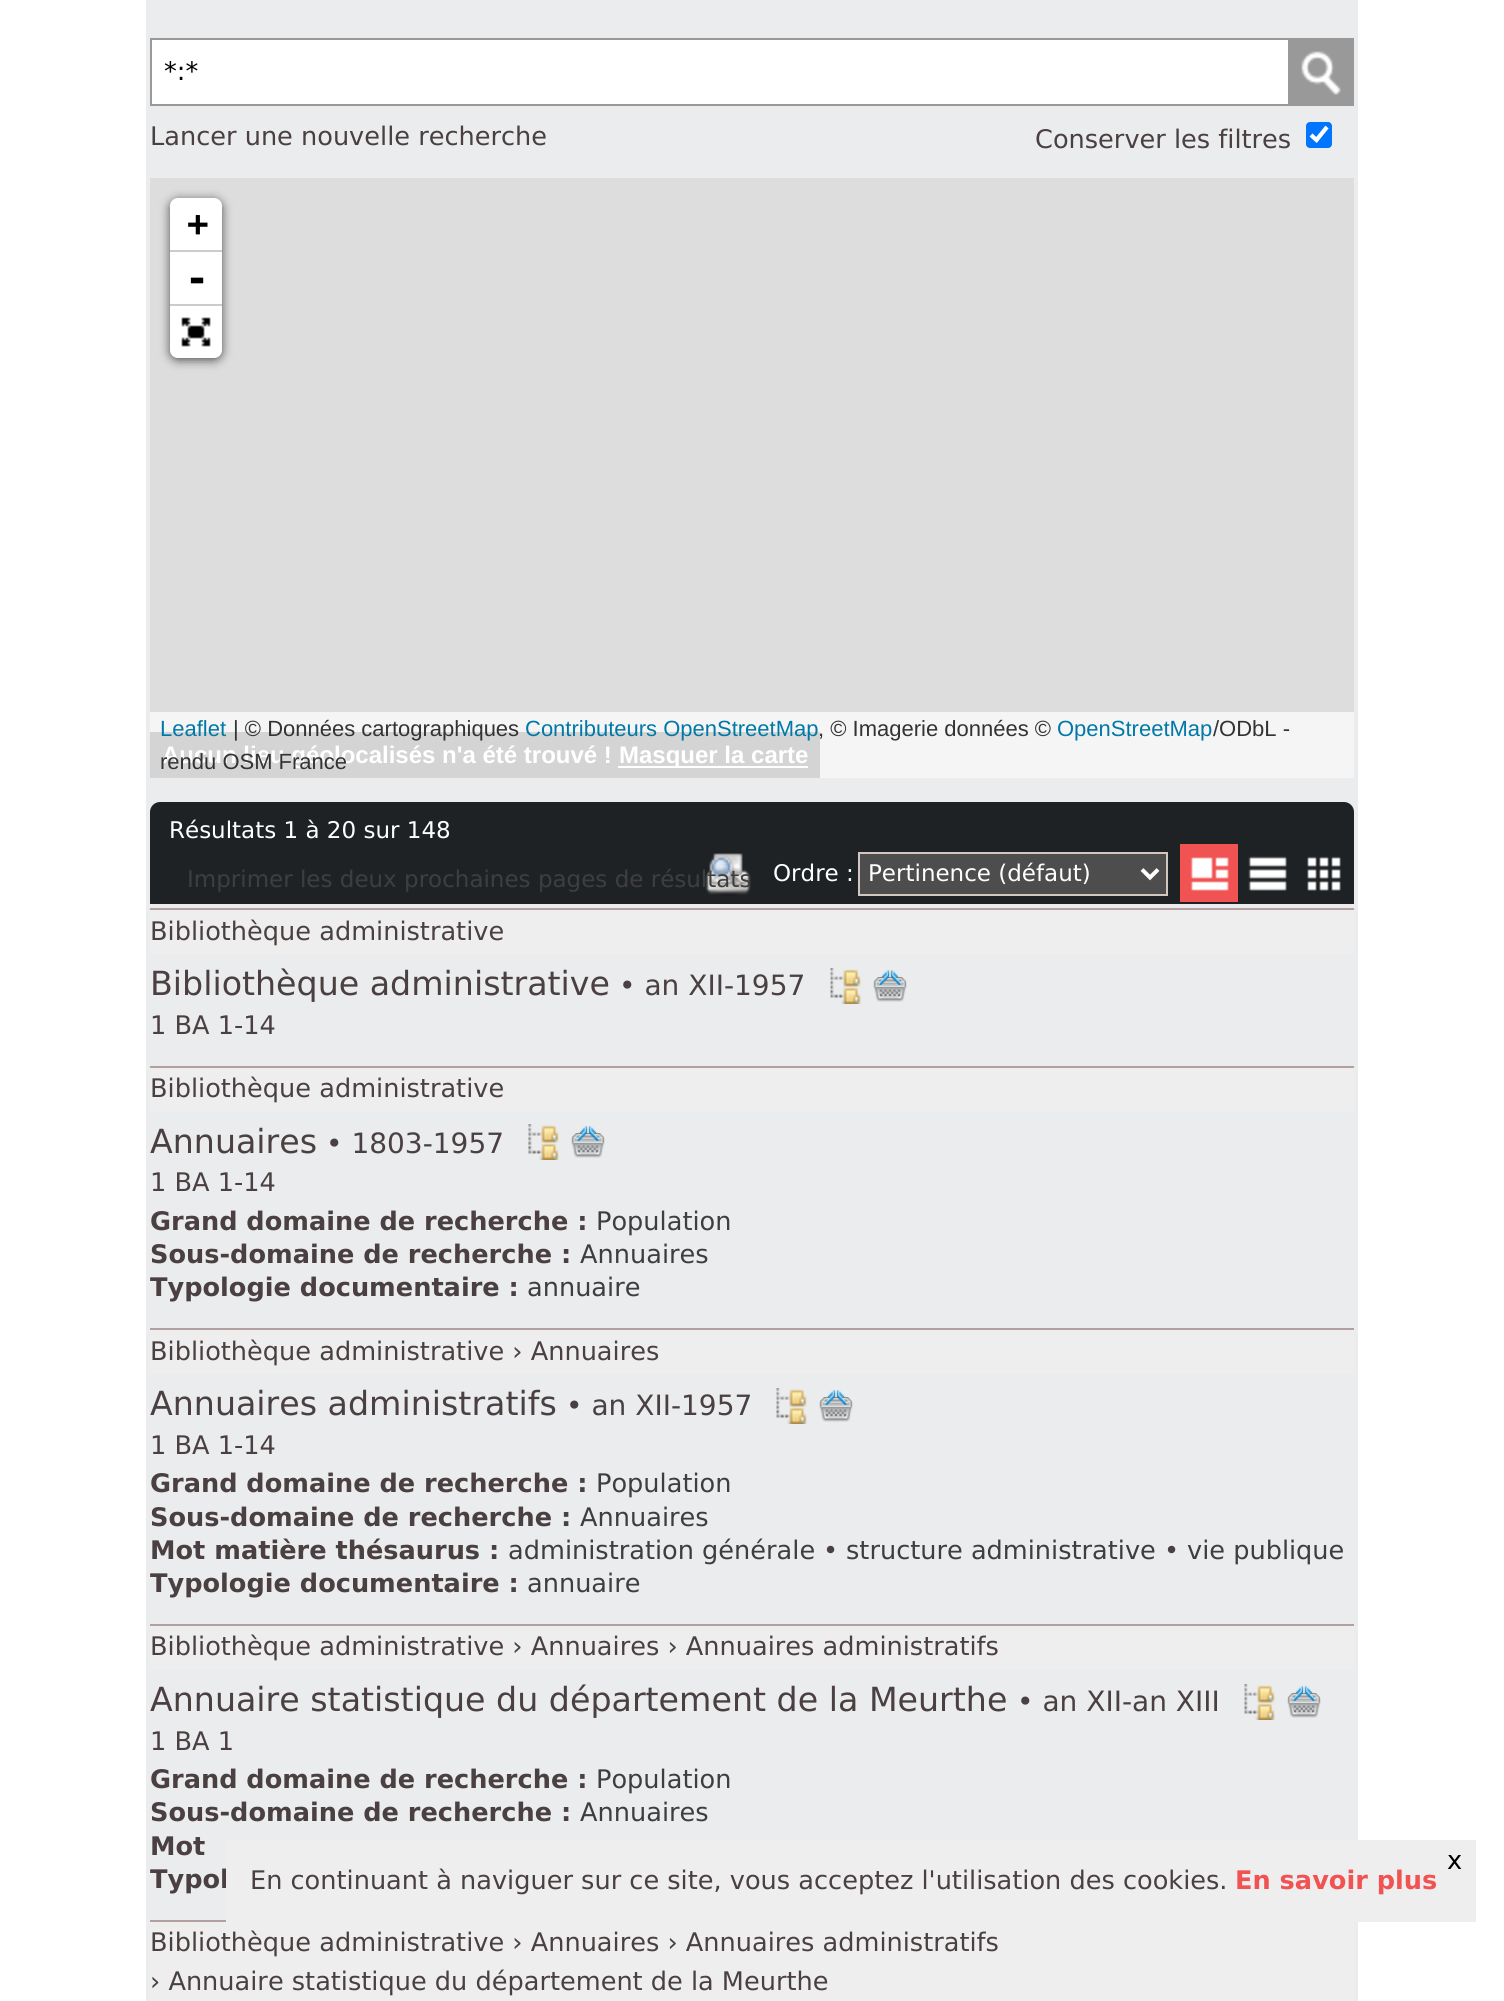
import math
import cairo

surface = cairo.ImageSurface(cairo.FORMAT_RGB24, 1504, 2001)
c = cairo.Context(surface)
options = cairo.FontOptions()
options.set_hint_metrics(cairo.HINT_METRICS_OFF)
options.set_hint_style(cairo.HINT_STYLE_NONE)
c.set_font_options(options)
c.set_miter_limit(4)
def C(code):
 c.set_source_rgb(*(v / 255 for v in bytes.fromhex(code[-6:])))
def F(family, size, italic, bold):
 c.select_font_face(family, cairo.FONT_SLANT_ITALIC if italic else cairo.FONT_SLANT_NORMAL, cairo.FONT_WEIGHT_BOLD if bold else cairo.FONT_WEIGHT_NORMAL)
 c.set_font_size(size)
def T(x, y, s):
 c.move_to(x, y)
 c.show_text(s)
def R(x, y, w, h):
 c.rectangle(x, y, w, h)
 c.fill()
def Q(x, y, w, h, r):
 c.new_sub_path()
 for i, (u, v) in enumerate([(x + w - r, y + h - r), (x + r, y + h - r), (x + r, y + r), (x + w - r, y + r)]):
  c.arc(u, v, r, i * math.pi / 2, (i + 1) * math.pi / 2)
 c.close_path()
def S(x, y, w, h, r, blur, alpha):
 c.push_group_with_content(cairo.CONTENT_ALPHA)
 c.set_operator(cairo.OPERATOR_SOURCE)
 for i in range(15, -16, -2):
  e = blur * i / 6
  if min(w, h) + 2 * e > 0:
   c.set_source_rgba(0, 0, 0, alpha * math.erfc((i - 1) / 8.5) / 2)
   Q(x - e, y - e, w + 2 * e, h + 2 * e, max(0, min(r + e + blur * .6, min(w, h) / 2 + e)))
   c.fill()
 c.mask(c.pop_group())
def I(path, x, y, w, h):
 c.save()
 c.set_source_surface(cairo.ImageSurface.create_from_png(path), x, y)
 c.rectangle(x, y, w, h)
 c.fill()
 c.restore()
C('ffffff')
c.paint()
C('ebeced')
R(146,0,1212,2001)
c.rectangle(151,39,1202,66)
C('999999')
c.stroke()
C('ffffff')
R(152,40,1136,64)
F('DejaVu Sans',25.6,0,0)
C('000000')
T(164,80,'*:*')
C('999999')
R(1288,40,64,64)
I('1.png',1301,51,40,44)
C('4a4041')
T(1035,148,'Conserver les filtres')
C('0075ff')
Q(1306,122,26,26,4)
c.fill()
c.new_path()
c.move_to(1311,135)
c.line_to(1316.5,140)
c.line_to(1327,127)
C('ffffff')
c.set_line_width(4.2)
c.stroke()
C('4a4041')
T(150,145,'Lancer une nouvelle recherche')
C('dddddd')
R(150,178,1204,534)
C('f5f5f5')
R(150,712,1204,66)
C('000000')
S(170,200,52,160,8,5,.65)
C('ffffff')
c.new_path()
c.move_to(178,198)
c.line_to(214,198)
c.curve_to(218.5,198,222,201.5,222,206)
c.line_to(222,252)
c.line_to(170,252)
c.line_to(170,206)
c.curve_to(170,201.5,173.5,198,178,198)
c.close_path()
c.fill()
C('cccccc')
R(170,250,52,2)
F('DejaVu Sans Mono',36,0,1)
C('000000')
T(187,236,'+')
C('ffffff')
R(170,252,52,52)
C('cccccc')
R(170,304,52,2)
F('DejaVu Sans Mono',40,0,1)
C('000000')
T(185,292,'-')
C('ffffff')
c.new_path()
c.move_to(170,306)
c.line_to(222,306)
c.line_to(222,350)
c.curve_to(222,354.5,218.5,358,214,358)
c.line_to(178,358)
c.curve_to(173.5,358,170,354.5,170,350)
c.close_path()
c.fill()
I('2.png',181,317,30,30)
C('d4d4d4')
R(150,732,670,46)
F('Liberation Sans',22,0,0)
C('0078a8')
T(160,736,'Leaflet')
C('333333')
T(233,736,'| © Données cartographiques')
C('0078a8')
T(525,736,'Contributeurs OpenStreetMap')
C('333333')
T(818,736,', © Imagerie données ©')
C('0078a8')
T(1057,736,'OpenStreetMap')
C('333333')
T(1213,736,'/ODbL -')
F('Liberation Sans',24,0,1)
C('ffffff')
T(162,763,'Aucun lieu géolocalisés n\'a été trouvé !')
F('Liberation Sans',22,0,0)
C('333333')
T(160,769,'rendu OSM France')
C('ffffff')
R(618,766,190,2)
F('Liberation Sans',24,0,1)
T(619,763,'Masquer la carte')
C('1f2225')
c.new_path()
c.move_to(160,802)
c.line_to(1344,802)
c.curve_to(1349.5,802,1354,806.5,1354,812)
c.line_to(1354,904)
c.line_to(150,904)
c.line_to(150,812)
c.curve_to(150,806.5,154.5,802,160,802)
c.close_path()
c.fill()
F('DejaVu Sans',23,0,0)
C('ffffff')
T(169,838,'Résultats 1 à 20 sur 148')
I('3.png',705,853,46,43)
C('3e3e3e')
T(187,887,'Imprimer les deux prochaines pages de résultats')
C('ffffff')
T(773,881,'Ordre :')
C('4d4d4d')
c.rectangle(859,853,308,42)
c.fill_preserve()
C('d1c6c0')
c.set_line_width(2)
c.stroke()
c.new_path()
c.move_to(1142,869.5)
c.line_to(1150,877.5)
c.line_to(1158,869.5)
C('ffffff')
c.set_line_width(4)
c.stroke()
T(868,881,'Pertinence (défaut)')
C('f15252')
R(1180,844,58,58)
I('4.png',1190,857,39,34)
I('5.png',1248,856,39,35)
I('6.png',1307,856,34,35)
C('b2a0a0')
R(150,908,1204,2)
C('eeeeee')
R(150,910,1204,44)
F('DejaVu Sans',25.6,0,0)
C('4a4041')
T(150,940,'Bibliothèque administrative')
F('DejaVu Sans',33.25,0,0)
T(150,995,'Bibliothèque administrative')
F('DejaVu Sans',28,0,0)
T(619,995,'• an XII-1957')
I('7.png',830,968,31,36)
I('8.png',873,970,34,32)
F('DejaVu Sans',25.6,0,0)
T(150,1034,'1 BA 1-14')
C('b2a0a0')
R(150,1066,1204,2)
C('eeeeee')
R(150,1068,1204,44)
C('4a4041')
T(150,1097,'Bibliothèque administrative')
F('DejaVu Sans',33.25,0,0)
T(150,1153,'Annuaires')
F('DejaVu Sans',28,0,0)
T(326,1153,'• 1803-1957')
I('9.png',528,1124,31,36)
I('10.png',571,1126,34,32)
F('DejaVu Sans',25.6,0,0)
T(150,1191,'1 BA 1-14')
F('DejaVu Sans',25.6,0,1)
T(150,1230,'Grand domaine de recherche :')
F('DejaVu Sans',25.6,0,0)
C('3e3e3e')
T(596,1230,'Population')
F('DejaVu Sans',25.6,0,1)
C('4a4041')
T(150,1263,'Sous-domaine de recherche :')
F('DejaVu Sans',25.6,0,0)
C('3e3e3e')
T(580,1263,'Annuaires')
F('DejaVu Sans',25.6,0,1)
C('4a4041')
T(150,1296,'Typologie documentaire :')
F('DejaVu Sans',25.6,0,0)
C('3e3e3e')
T(527,1296,'annuaire')
C('b2a0a0')
R(150,1328,1204,2)
C('eeeeee')
R(150,1330,1204,44)
C('4a4041')
T(150,1360,'Bibliothèque administrative › Annuaires')
F('DejaVu Sans',33.25,0,0)
T(150,1415,'Annuaires administratifs')
F('DejaVu Sans',28,0,0)
T(566,1415,'• an XII-1957')
I('11.png',776,1388,31,36)
I('12.png',819,1390,34,32)
F('DejaVu Sans',25.6,0,0)
T(150,1454,'1 BA 1-14')
F('DejaVu Sans',25.6,0,1)
T(150,1492,'Grand domaine de recherche :')
F('DejaVu Sans',25.6,0,0)
C('3e3e3e')
T(596,1492,'Population')
F('DejaVu Sans',25.6,0,1)
C('4a4041')
T(150,1526,'Sous-domaine de recherche :')
F('DejaVu Sans',25.6,0,0)
C('3e3e3e')
T(580,1526,'Annuaires')
F('DejaVu Sans',25.6,0,1)
C('4a4041')
T(150,1559,'Mot matière thésaurus :')
F('DejaVu Sans',25.6,0,0)
C('3e3e3e')
T(508,1559,'administration générale')
C('4a4041')
T(823,1559,'•')
C('3e3e3e')
T(846,1559,'structure administrative')
C('4a4041')
T(1164,1559,'•')
C('3e3e3e')
T(1187,1559,'vie publique')
F('DejaVu Sans',25.6,0,1)
C('4a4041')
T(150,1592,'Typologie documentaire :')
F('DejaVu Sans',25.6,0,0)
C('3e3e3e')
T(527,1592,'annuaire')
C('b2a0a0')
R(150,1624,1204,2)
C('eeeeee')
R(150,1626,1204,44)
C('4a4041')
T(150,1655,'Bibliothèque administrative › Annuaires › Annuaires administratifs')
F('DejaVu Sans',33.25,0,0)
T(150,1711,'Annuaire statistique du département de la Meurthe')
F('DejaVu Sans',28,0,0)
T(1017,1711,'• an XII-an XIII')
I('7.png',1244,1684,31,36)
I('10.png',1287,1686,34,32)
F('DejaVu Sans',25.6,0,0)
T(150,1750,'1 BA 1')
F('DejaVu Sans',25.6,0,1)
T(150,1788,'Grand domaine de recherche :')
F('DejaVu Sans',25.6,0,0)
C('3e3e3e')
T(596,1788,'Population')
F('DejaVu Sans',25.6,0,1)
C('4a4041')
T(150,1821,'Sous-domaine de recherche :')
F('DejaVu Sans',25.6,0,0)
C('3e3e3e')
T(580,1821,'Annuaires')
F('DejaVu Sans',25.6,0,1)
C('4a4041')
T(150,1855,'Mot')
T(150,1888,'Typol')
C('b2a0a0')
R(150,1920,76,2)
C('eeeeee')
R(150,1922,1204,79)
F('DejaVu Sans',25.6,0,0)
C('4a4041')
T(150,1951,'Bibliothèque administrative › Annuaires › Annuaires administratifs')
T(150,1990,'› Annuaire statistique du département de la Meurthe')
C('eeeeee')
R(226,1840,1250,82)
C('000000')
T(1447,1869,'x')
C('4a4041')
T(250,1889,'En continuant à naviguer sur ce site, vous acceptez l\'utilisation des cookies.')
F('DejaVu Sans',25.6,0,1)
C('f15252')
T(1235,1889,'En savoir plus')
surface.write_to_png('o.png')
